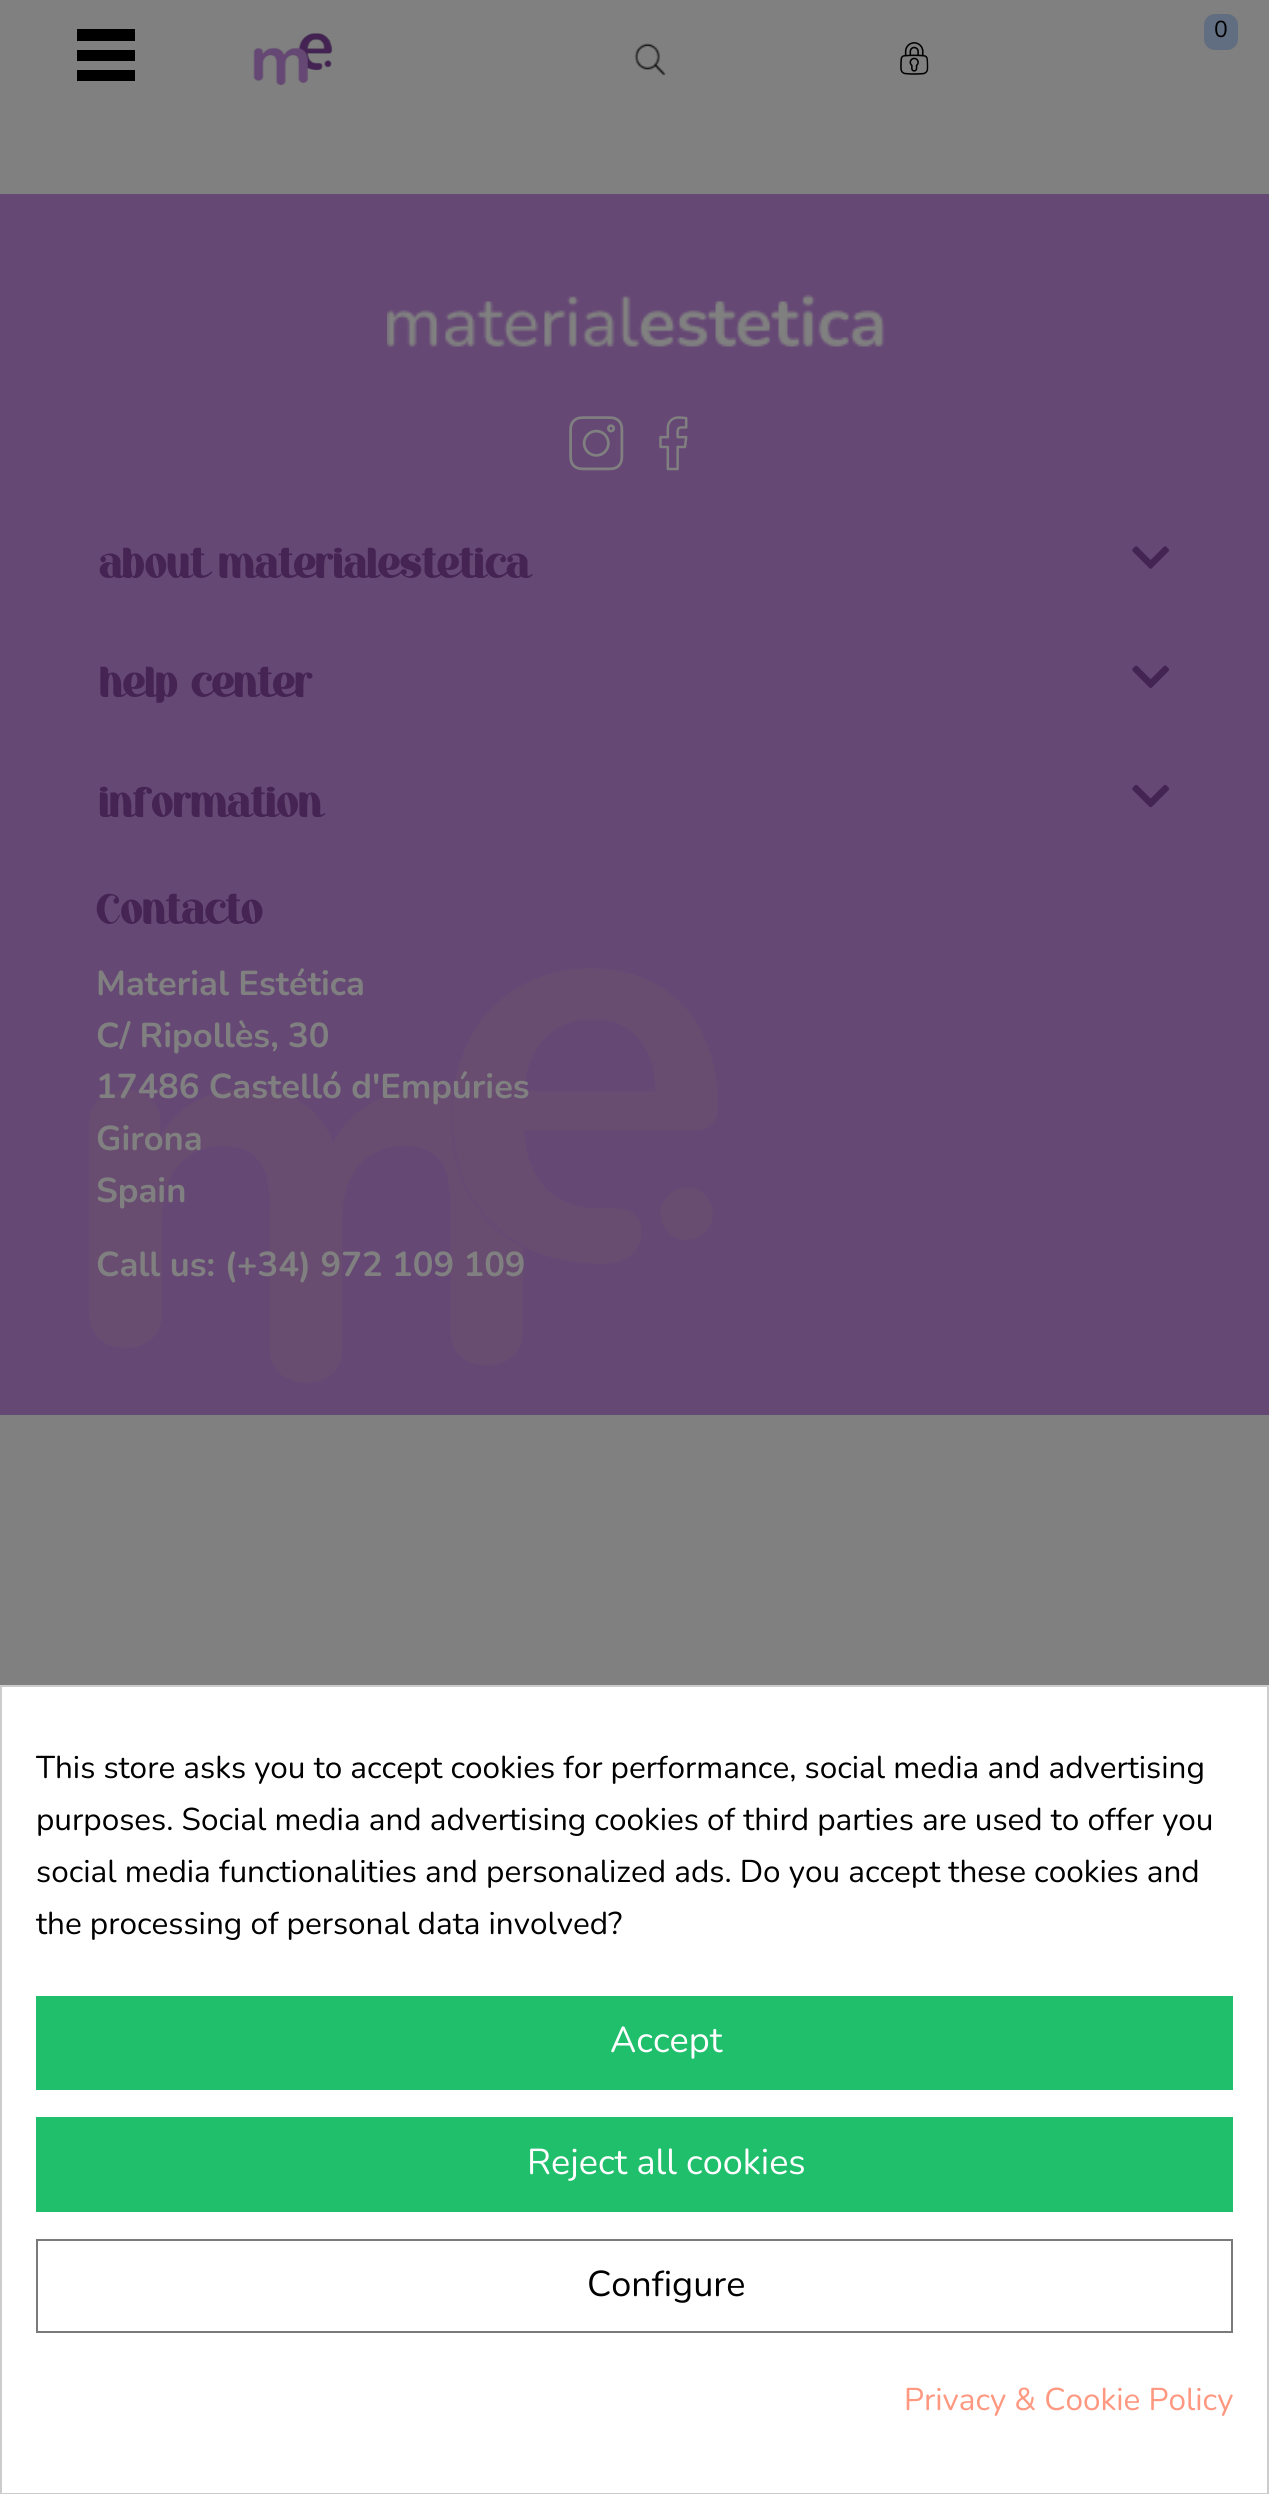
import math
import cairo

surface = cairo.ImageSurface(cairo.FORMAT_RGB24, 1269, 2494)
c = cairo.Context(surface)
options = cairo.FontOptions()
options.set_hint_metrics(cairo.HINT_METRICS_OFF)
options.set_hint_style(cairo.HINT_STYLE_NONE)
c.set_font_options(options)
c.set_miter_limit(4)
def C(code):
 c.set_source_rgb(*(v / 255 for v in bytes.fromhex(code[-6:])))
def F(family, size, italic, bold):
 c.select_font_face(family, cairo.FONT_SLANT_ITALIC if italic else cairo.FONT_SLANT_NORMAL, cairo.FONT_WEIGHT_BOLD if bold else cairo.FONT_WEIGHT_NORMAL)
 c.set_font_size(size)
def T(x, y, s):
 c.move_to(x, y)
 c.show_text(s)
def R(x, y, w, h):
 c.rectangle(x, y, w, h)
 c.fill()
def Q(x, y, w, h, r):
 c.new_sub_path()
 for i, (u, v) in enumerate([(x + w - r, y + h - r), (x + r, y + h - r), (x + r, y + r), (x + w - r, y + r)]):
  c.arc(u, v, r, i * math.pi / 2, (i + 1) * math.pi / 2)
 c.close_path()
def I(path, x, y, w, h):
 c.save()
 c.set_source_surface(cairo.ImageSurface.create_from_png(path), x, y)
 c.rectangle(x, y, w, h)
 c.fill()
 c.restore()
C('808080')
c.paint()
C('000000')
R(77,29,58,12)
R(77,50,58,11)
R(77,70,58,11)
C('616d80')
Q(1204,14,34,36,11)
c.fill()
F('Nunito',23,0,0)
C('000000')
T(1214,37,'0')
I('1.png',253,33,80,52)
I('2.png',634,43,32,33)
I('3.png',900,42,29,33)
C('664875')
R(0,194,1269,1221)
I('4.png',387,294,498,53)
I('5.png',569,416,55,55)
I('6.png',659,416,29,55)
F('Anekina',43.25,0,0)
C('452453')
T(99,578,'about materialestetica')
I('7.png',1132,546,37,23)
T(99,697,'help center')
I('8.png',1132,665,37,23)
T(99,817,'information')
I('9.png',1132,784,37,24)
T(96,924,'Contacto')
I('10.png',89,968,629,415)
F('Nunito',34.5,0,1)
C('808080')
T(96,995,'Material Estética')
T(96,1047,'C/ Ripollès, 30')
T(96,1098,'17486 Castelló d\'Empúries')
T(96,1150,'Girona')
T(96,1202,'Spain')
T(96,1276,'Call us: (+34) 972 109 109')
C('ffffff')
c.rectangle(1,1686,1267,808)
c.fill_preserve()
C('cccccc')
c.stroke()
F('Nunito',31.5,0,0)
C('000000')
T(36,1778,'This store asks you to accept cookies for performance, social media and advertising')
T(36,1830,'purposes. Social media and advertising cookies of third parties are used to offer you')
T(36,1882,'social media functionalities and personalized ads. Do you accept these cookies and')
T(36,1934,'the processing of personal data involved?')
C('20bf6b')
R(36,1996,1197,94)
F('Nunito',36,0,0)
C('ffffff')
T(610,2052,'Accept')
C('20bf6b')
R(36,2117,1197,95)
C('ffffff')
T(527,2174,'Reject all cookies')
c.rectangle(37,2240,1195,92)
C('7a7a7a')
c.stroke()
C('000000')
T(587,2296,'Configure')
F('Nunito',31.5,0,0)
C('fe9881')
T(904,2410,'Privacy & Cookie Policy')
surface.write_to_png('o.png')
